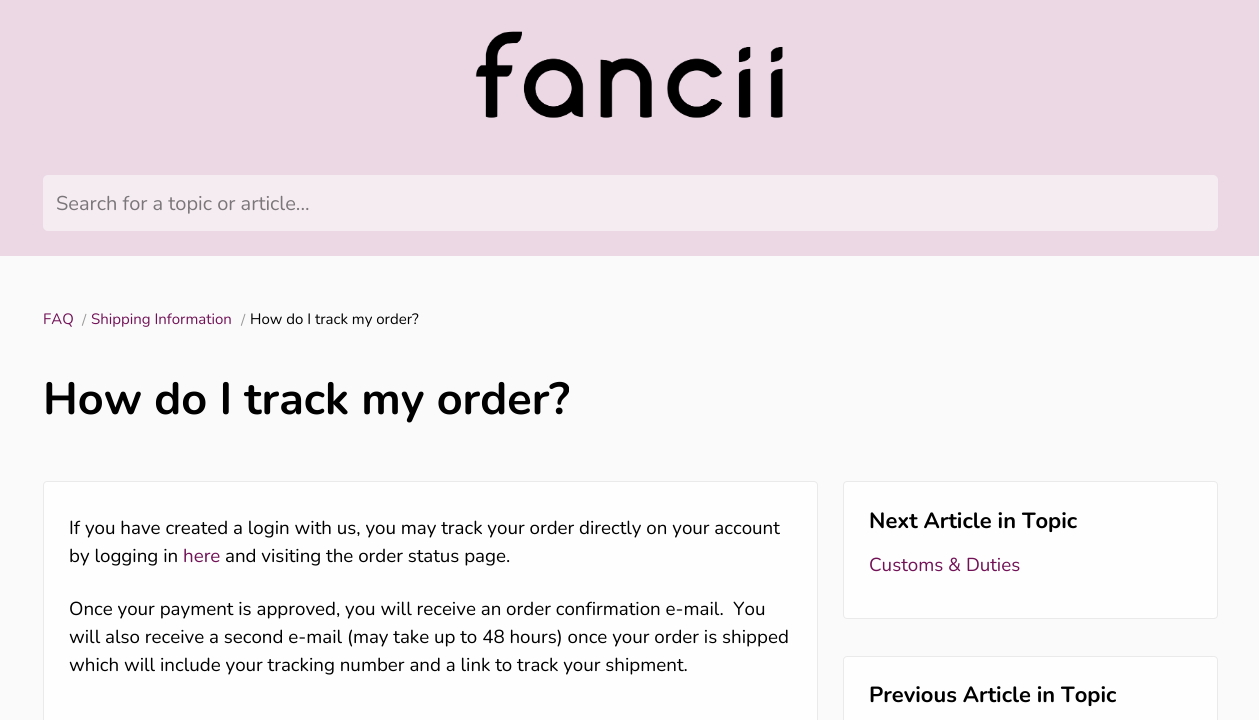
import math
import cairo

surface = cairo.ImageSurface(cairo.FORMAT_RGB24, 1259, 720)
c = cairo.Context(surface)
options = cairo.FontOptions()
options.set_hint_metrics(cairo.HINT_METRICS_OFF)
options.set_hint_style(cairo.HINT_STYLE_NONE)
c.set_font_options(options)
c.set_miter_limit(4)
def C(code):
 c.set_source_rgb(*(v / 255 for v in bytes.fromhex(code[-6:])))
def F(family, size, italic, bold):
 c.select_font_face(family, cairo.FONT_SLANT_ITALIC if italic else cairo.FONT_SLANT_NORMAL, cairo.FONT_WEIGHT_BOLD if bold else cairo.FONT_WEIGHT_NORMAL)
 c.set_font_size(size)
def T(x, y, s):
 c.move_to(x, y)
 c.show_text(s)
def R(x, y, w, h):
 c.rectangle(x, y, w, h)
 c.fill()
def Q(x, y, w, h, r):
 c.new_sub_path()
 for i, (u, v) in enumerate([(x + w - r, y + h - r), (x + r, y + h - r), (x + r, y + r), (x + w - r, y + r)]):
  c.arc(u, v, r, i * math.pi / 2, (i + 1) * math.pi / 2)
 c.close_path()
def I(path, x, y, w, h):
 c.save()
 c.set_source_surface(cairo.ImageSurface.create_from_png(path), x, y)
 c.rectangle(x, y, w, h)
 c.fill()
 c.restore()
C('fafafa')
c.paint()
C('ebd8e4')
R(0,0,1259,256)
I('1.png',475,31,308,87)
C('f5ecf2')
Q(43,175,1175,56,5)
c.fill()
F('Nunito',20,0,0)
C('7b7679')
T(56,210,'Search for a topic or article...')
F('Nunito',15,0,0)
C('711256')
T(43,324,'FAQ')
C('999999')
T(82,325,'/')
C('711256')
T(91,324,'Shipping Information')
C('999999')
T(241,325,'/')
C('000000')
T(250,324,'How do I track my order?')
F('Nunito',45,0,1)
T(43,414,'How do I track my order?')
C('fefefe')
Q(43.5,481.5,774,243,3.5)
c.fill_preserve()
C('eaeaea')
c.set_line_width(1)
c.stroke()
F('Nunito',18.75,0,0)
C('000000')
T(69,534,'If you have created a login with us, you may track your order directly on your account')
T(69,562,'by logging in')
C('711256')
T(183,562,'here')
C('000000')
T(225,562,'and visiting the order status page.')
T(69,615,'Once your payment is approved, you will receive an order confirmation e-mail.  You')
T(69,643,'will also receive a second e-mail (may take up to 48 hours) once your order is shipped')
T(69,671,'which will include your tracking number and a link to track your shipment.')
c.set_source_rgba(1,1,1,0.8)
Q(843,481,375,138,4)
c.fill()
Q(843.5,481.5,374,137,3.5)
c.set_source_rgba(0,0,0,0.08)
c.stroke()
F('Nunito',21.9,0,1)
C('000000')
T(869,528,'Next Article in Topic')
F('Nunito',18.75,0,0)
C('711256')
T(869,571,'Customs & Duties')
C('fefefe')
Q(843.5,656.5,374,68,3.5)
c.fill_preserve()
C('eaeaea')
c.stroke()
F('Nunito',21.9,0,1)
C('000000')
T(869,702,'Previous Article in Topic')
surface.write_to_png('o.png')
